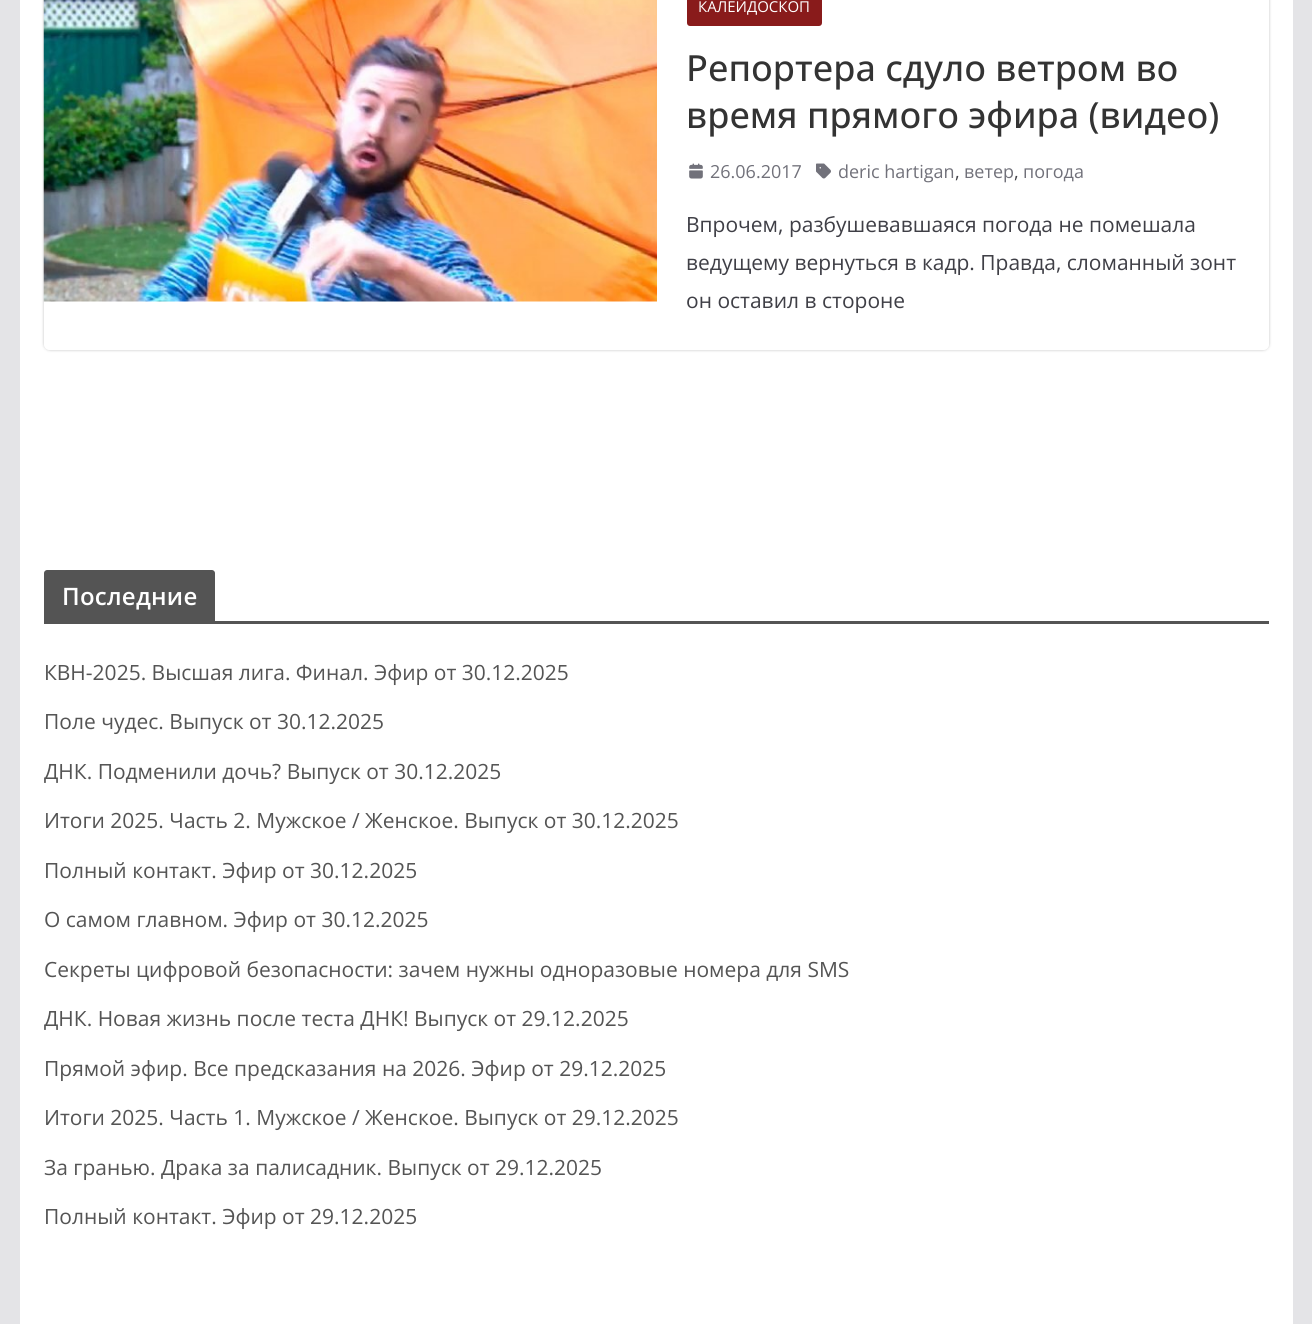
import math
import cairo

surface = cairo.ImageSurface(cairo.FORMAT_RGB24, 1312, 1324)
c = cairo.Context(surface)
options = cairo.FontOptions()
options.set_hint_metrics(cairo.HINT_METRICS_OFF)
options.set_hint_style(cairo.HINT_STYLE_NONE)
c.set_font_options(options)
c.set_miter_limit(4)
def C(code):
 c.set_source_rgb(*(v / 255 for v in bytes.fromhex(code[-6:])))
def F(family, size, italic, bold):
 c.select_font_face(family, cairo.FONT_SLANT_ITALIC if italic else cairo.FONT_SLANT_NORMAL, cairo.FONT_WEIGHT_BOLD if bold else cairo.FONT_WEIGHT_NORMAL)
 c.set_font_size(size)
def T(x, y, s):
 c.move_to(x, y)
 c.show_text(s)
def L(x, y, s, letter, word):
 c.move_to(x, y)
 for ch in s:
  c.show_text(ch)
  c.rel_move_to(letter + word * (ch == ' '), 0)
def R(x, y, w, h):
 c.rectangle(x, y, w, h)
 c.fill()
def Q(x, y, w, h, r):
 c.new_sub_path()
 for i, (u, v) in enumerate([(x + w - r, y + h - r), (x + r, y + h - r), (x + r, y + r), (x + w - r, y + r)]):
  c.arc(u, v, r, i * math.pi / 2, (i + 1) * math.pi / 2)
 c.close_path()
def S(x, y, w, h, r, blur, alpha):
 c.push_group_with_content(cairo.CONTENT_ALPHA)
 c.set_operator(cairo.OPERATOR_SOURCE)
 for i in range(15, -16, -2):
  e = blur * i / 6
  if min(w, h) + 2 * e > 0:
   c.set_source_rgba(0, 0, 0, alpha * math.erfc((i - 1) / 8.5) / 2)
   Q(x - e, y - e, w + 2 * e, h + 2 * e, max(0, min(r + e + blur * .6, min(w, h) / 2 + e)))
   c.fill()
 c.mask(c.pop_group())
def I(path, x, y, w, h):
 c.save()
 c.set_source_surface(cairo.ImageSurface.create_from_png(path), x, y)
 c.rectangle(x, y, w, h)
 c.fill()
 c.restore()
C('e4e4e7')
c.paint()
C('ffffff')
R(20,0,1273,1324)
c.save()
c.set_fill_rule(cairo.FILL_RULE_EVEN_ODD)
c.new_path()
c.move_to(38,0)
c.line_to(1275,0)
c.line_to(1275,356)
c.line_to(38,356)
c.close_path()
c.move_to(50,-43)
c.line_to(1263,-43)
c.curve_to(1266.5,-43,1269,-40.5,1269,-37)
c.line_to(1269,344)
c.curve_to(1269,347.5,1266.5,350,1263,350)
c.line_to(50,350)
c.curve_to(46.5,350,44,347.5,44,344)
c.line_to(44,-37)
c.curve_to(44,-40.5,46.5,-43,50,-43)
c.close_path()
c.clip()
C('000000')
S(44,-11,1225,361,6,1.5,.24)
c.restore()
I('1.png',43,0,614,302)
C('891b1b')
Q(687,-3,135,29,3)
c.fill()
F('Open Sans',15,0,0)
C('ffffff')
T(698,12,'КАЛЕЙДОСКОП')
F('Open Sans Medium',36,0,0)
C('333333')
T(686,81,'Репортера сдуло ветром во')
T(686,128,'время прямого эфира (видео)')
I('2.png',689,163,14,16)
F('Open Sans',18,0,0)
C('71717a')
T(710,178,'26.06.2017')
I('3.png',816,163,15,16)
T(838,178,'deric hartigan')
C('3f3f46')
T(955,178,',')
C('71717a')
T(964,178,'ветер')
C('3f3f46')
T(1014,178,',')
C('71717a')
T(1023,178,'погода')
F('Open Sans',21,0,0)
C('3f3f46')
T(686,232,'Впрочем, разбушевавшаяся погода не помешала')
T(686,270,'ведущему вернуться в кадр. Правда, сломанный зонт')
T(686,308,'он оставил в стороне')
C('545454')
R(44,621,1225,3)
c.new_path()
c.move_to(47,570)
c.line_to(212,570)
c.curve_to(213.5,570,215,571.5,215,573)
c.line_to(215,621)
c.line_to(44,621)
c.line_to(44,573)
c.curve_to(44,571.5,45.5,570,47,570)
c.close_path()
c.fill()
F('Open Sans SemiBold',24,0,0)
C('ffffff')
L(62,605,'Последние',.25,0)
F('Open Sans',21,0,0)
C('545454')
T(44,680,'КВН-2025. Высшая лига. Финал. Эфир от 30.12.2025')
T(44,729,'Поле чудес. Выпуск от 30.12.2025')
T(44,779,'ДНК. Подменили дочь? Выпуск от 30.12.2025')
T(44,828,'Итоги 2025. Часть 2. Мужское / Женское. Выпуск от 30.12.2025')
T(44,878,'Полный контакт. Эфир от 30.12.2025')
T(44,927,'О самом главном. Эфир от 30.12.2025')
T(44,977,'Секреты цифровой безопасности: зачем нужны одноразовые номера для SMS')
T(44,1026,'ДНК. Новая жизнь после теста ДНК! Выпуск от 29.12.2025')
T(44,1076,'Прямой эфир. Все предсказания на 2026. Эфир от 29.12.2025')
T(44,1125,'Итоги 2025. Часть 1. Мужское / Женское. Выпуск от 29.12.2025')
T(44,1175,'За гранью. Драка за палисадник. Выпуск от 29.12.2025')
T(44,1224,'Полный контакт. Эфир от 29.12.2025')
surface.write_to_png('o.png')
